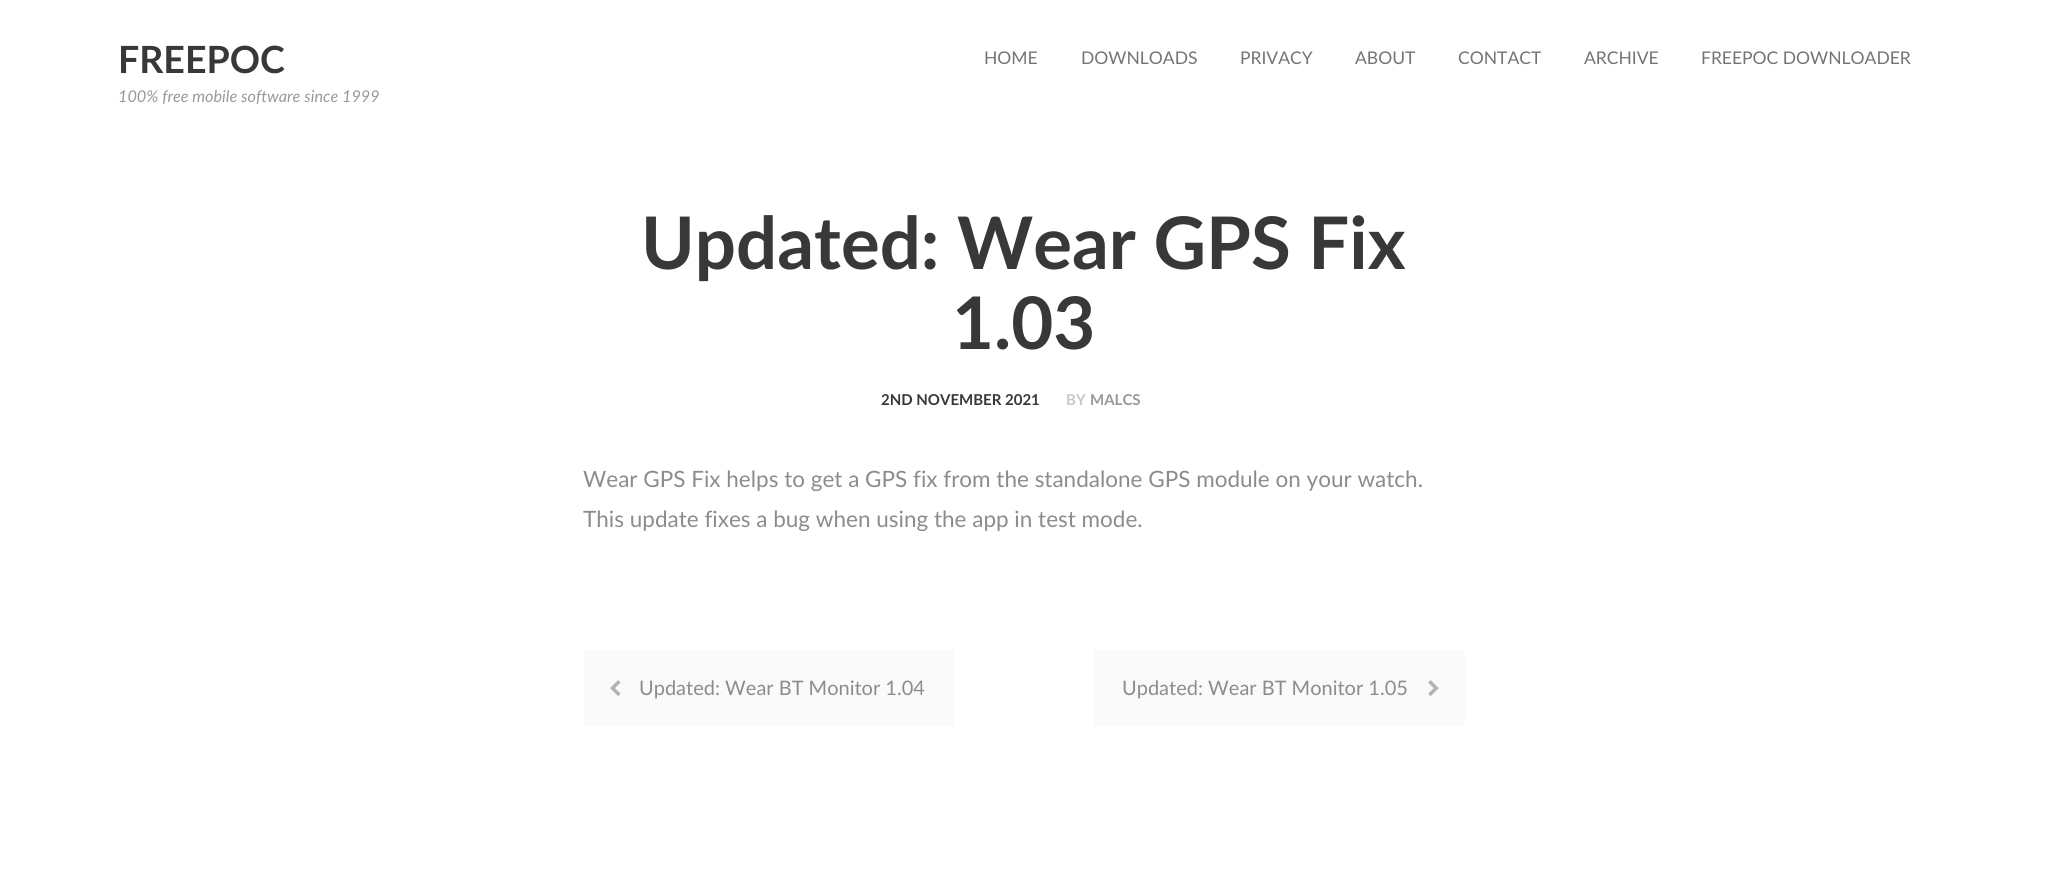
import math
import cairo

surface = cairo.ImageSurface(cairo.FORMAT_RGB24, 2047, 876)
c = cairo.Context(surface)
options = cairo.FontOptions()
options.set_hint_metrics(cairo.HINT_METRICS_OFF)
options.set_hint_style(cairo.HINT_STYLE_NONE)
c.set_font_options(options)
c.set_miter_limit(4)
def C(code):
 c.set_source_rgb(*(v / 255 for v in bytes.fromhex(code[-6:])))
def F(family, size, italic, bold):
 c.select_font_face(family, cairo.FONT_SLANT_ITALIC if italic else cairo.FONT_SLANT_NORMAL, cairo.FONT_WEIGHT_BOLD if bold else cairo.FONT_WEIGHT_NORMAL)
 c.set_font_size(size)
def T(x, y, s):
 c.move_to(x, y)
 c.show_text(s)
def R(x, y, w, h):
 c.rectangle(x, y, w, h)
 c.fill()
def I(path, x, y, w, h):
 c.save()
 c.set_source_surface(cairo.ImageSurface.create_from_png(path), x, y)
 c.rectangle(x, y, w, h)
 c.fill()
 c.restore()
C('ffffff')
c.paint()
F('Lato',37.5,0,1)
C('383838')
T(118,73,'FREEPOC')
F('Lato',16.25,1,0)
C('999999')
T(118,102,'100% free mobile software since 1999')
F('Lato',17.5,0,0)
C('747474')
T(984,64,'HOME')
T(1081,64,'DOWNLOADS')
T(1240,64,'PRIVACY')
T(1355,64,'ABOUT')
T(1458,64,'CONTACT')
T(1584,64,'ARCHIVE')
T(1701,64,'FREEPOC DOWNLOADER')
F('Lato',72.5,0,1)
C('383838')
T(641,269,'Updated: Wear GPS Fix')
T(952,349,'1.03')
F('Lato',15,0,1)
T(881,405,'2ND NOVEMBER 2021')
C('c7c7c7')
T(1066,405,'BY')
C('999999')
T(1090,405,'MALCS')
F('Lato',22.5,0,0)
C('8c8c8c')
T(583,487,'Wear GPS Fix helps to get a GPS fix from the standalone GPS module on your watch.')
T(583,527,'This update fixes a bug when using the app in test mode.')
C('fafafa')
R(584,651,370,74)
I('1.png',610,680,11,16)
F('Lato',20,0,0)
C('8c8c8c')
T(639,695,'Updated: Wear BT Monitor 1.04')
C('fafafa')
R(1094,651,371,74)
C('8c8c8c')
T(1122,695,'Updated: Wear BT Monitor 1.05')
I('2.png',1428,680,11,16)
surface.write_to_png('o.png')
